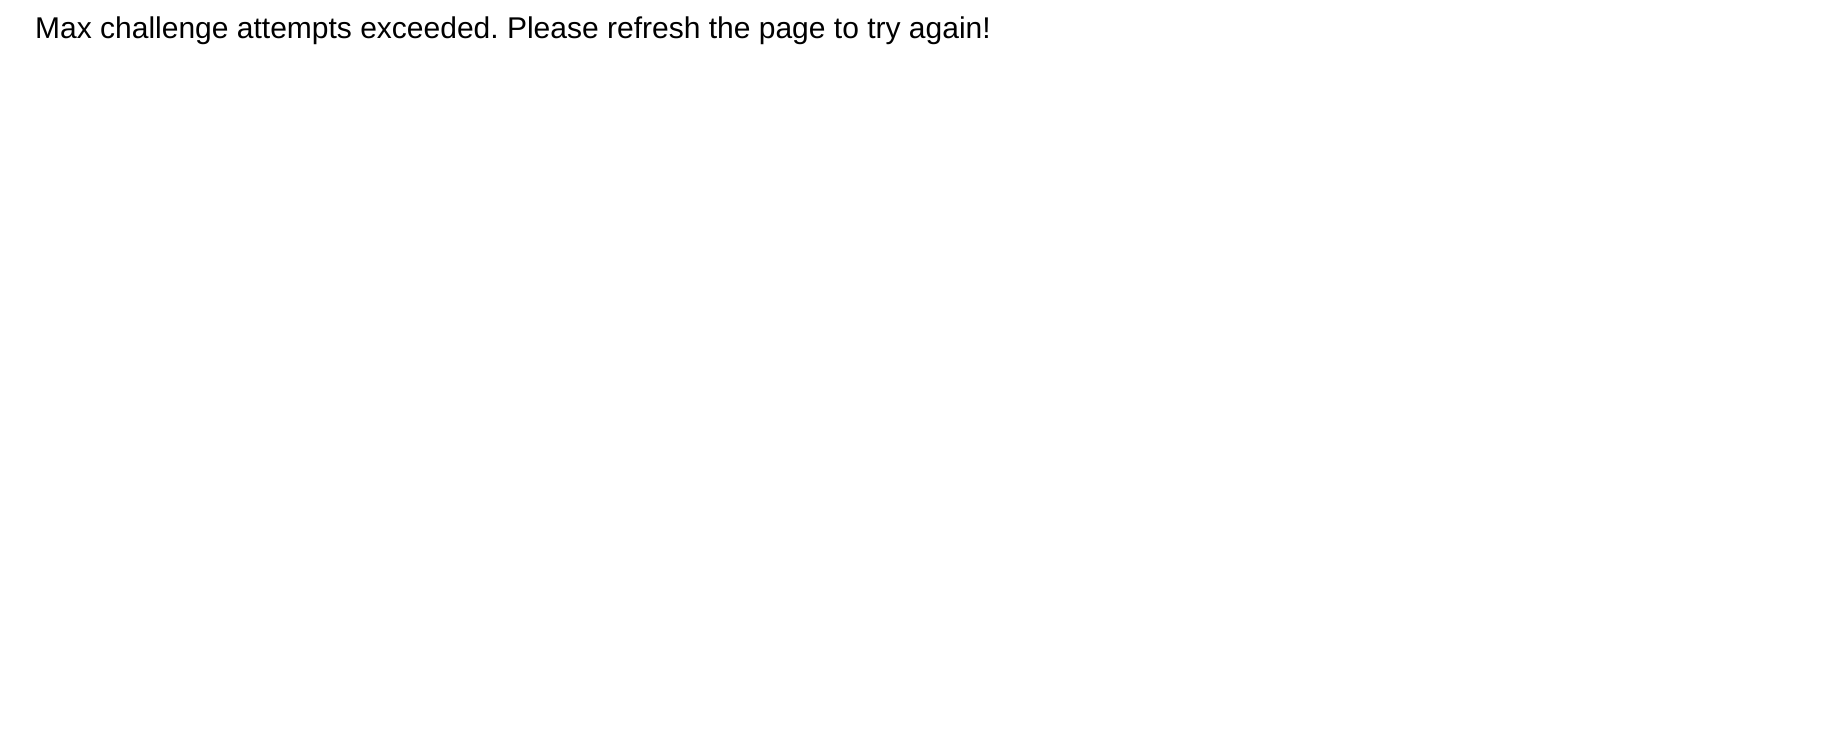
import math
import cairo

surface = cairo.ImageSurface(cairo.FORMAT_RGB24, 1841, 740)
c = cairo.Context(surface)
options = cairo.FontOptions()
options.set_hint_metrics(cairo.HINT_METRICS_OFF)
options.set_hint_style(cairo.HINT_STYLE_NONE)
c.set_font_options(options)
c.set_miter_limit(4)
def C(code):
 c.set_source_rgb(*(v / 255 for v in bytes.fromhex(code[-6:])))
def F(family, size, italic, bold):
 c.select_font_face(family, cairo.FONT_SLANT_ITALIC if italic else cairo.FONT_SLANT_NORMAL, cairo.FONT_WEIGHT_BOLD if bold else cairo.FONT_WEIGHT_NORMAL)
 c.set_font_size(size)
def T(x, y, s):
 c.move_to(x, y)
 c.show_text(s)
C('ffffff')
c.paint()
F('Liberation Sans',30,0,0)
C('000000')
T(35,38,'Max challenge attempts exceeded. Please refresh the page to try again!')
surface.write_to_png('o.png')
